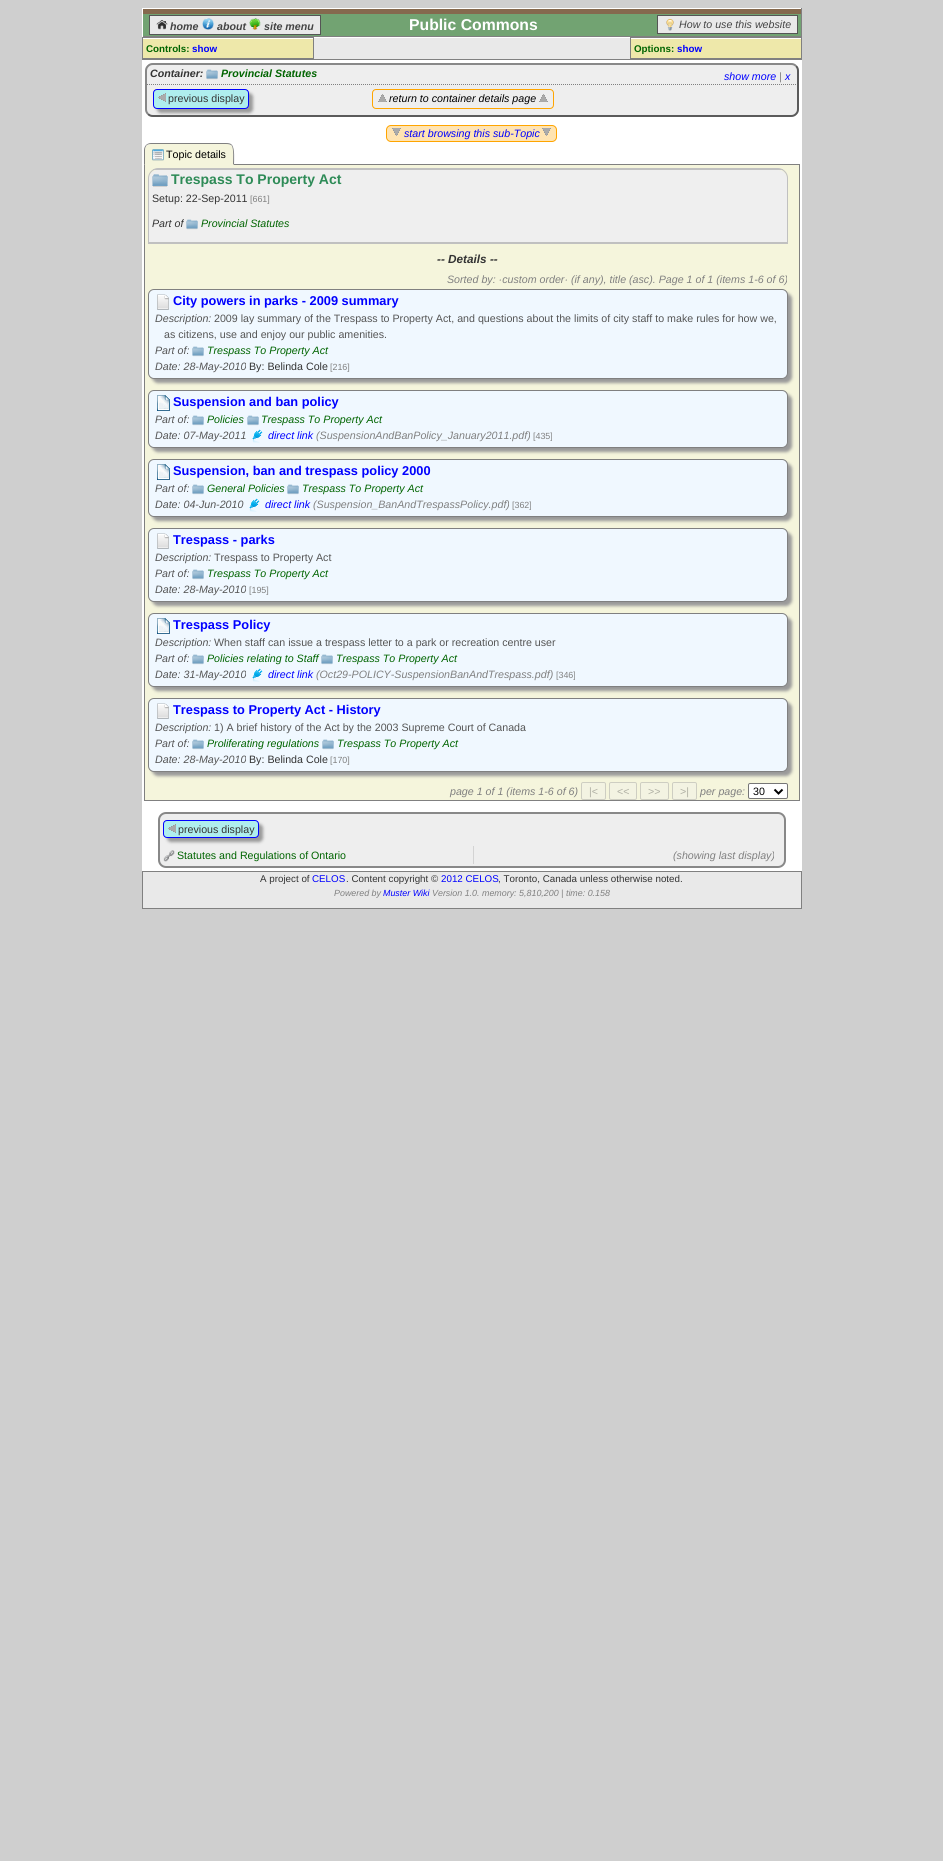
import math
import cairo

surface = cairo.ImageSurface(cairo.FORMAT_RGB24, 943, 1861)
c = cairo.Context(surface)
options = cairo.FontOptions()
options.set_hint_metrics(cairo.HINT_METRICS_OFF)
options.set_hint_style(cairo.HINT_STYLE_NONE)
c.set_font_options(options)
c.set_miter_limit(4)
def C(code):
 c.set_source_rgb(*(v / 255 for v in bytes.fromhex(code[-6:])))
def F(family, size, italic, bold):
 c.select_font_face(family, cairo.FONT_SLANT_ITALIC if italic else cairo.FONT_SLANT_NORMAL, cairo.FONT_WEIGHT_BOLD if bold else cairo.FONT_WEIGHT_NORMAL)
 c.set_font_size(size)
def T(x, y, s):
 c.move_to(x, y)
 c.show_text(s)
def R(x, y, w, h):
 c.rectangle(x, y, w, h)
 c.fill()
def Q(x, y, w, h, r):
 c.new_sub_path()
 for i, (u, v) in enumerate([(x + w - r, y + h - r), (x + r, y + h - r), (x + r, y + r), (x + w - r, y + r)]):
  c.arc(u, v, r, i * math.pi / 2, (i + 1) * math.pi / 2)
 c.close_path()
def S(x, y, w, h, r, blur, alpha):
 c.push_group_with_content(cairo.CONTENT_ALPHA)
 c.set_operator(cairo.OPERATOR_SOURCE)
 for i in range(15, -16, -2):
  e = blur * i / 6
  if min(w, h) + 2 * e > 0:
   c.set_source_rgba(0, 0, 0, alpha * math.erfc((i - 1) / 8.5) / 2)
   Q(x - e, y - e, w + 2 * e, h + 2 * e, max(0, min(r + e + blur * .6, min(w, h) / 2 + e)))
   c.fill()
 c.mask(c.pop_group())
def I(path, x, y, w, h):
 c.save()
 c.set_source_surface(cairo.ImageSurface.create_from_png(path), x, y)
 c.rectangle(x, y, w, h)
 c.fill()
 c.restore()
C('cfcfcf')
c.paint()
C('ffffff')
R(142,8,660,1)
C('808080')
R(801,8,1,29)
R(142,36,660,1)
C('ffffff')
R(142,8,1,29)
C('72a372')
R(143,14,658,22)
C('e9e9e9')
c.rectangle(149.5,15.5,171,19)
c.fill_preserve()
C('555555')
c.set_line_width(1)
c.stroke()
I('1.png',156,20,12,10)
F('Liberation Sans',10.67,1,1)
C('444444')
T(170,30,'home')
I('2.png',202,18,12,12)
T(217,30,'about')
I('3.png',249,18,12,12)
T(264,30,'site menu')
C('85694e')
R(143,9,658,5)
F('Liberation Sans',15.75,0,1)
C('ffffff')
T(409,30,'Public Commons')
C('e9e9e9')
c.rectangle(657.5,15.5,140,18)
c.fill_preserve()
C('555555')
c.stroke()
I('4.png',666,19,8,12)
F('Liberation Sans',10.67,1,0)
C('444444')
T(679,28,'How to use this website')
C('e9e9e9')
R(314,38,316,21)
C('eee8aa')
R(143,39,170,19)
c.rectangle(142.5,37.5,171,21)
C('808080')
c.stroke()
C('ffffff')
R(143,38,170,1)
F('Liberation Sans',9.8,0,1)
C('006400')
T(146,52,'Controls:')
C('0000ff')
T(192,52,'show')
C('eee8aa')
R(631,39,170,19)
c.rectangle(630.5,37.5,171,21)
C('808080')
c.stroke()
C('ffffff')
R(631,38,170,1)
C('006400')
T(634,52,'Options:')
C('0000ff')
T(677,52,'show')
C('ffffff')
R(314,37,316,1)
C('808080')
R(142,59,660,1)
C('ffffff')
R(142,60,660,811)
C('eeeeee')
Q(145,63,654,54,8)
c.fill()
c.new_path()
c.move_to(796,66)
c.curve_to(797.5,67.5,798,69,798,71)
c.line_to(798,109)
c.curve_to(798,111,797.5,112.5,796,114)
c.curve_to(794.5,115.5,793,116,791,116)
c.line_to(153,116)
c.curve_to(151,116,149.5,115.5,148,114)
C('5b5b5b')
c.set_line_width(2)
c.stroke()
c.new_path()
c.move_to(148,114)
c.curve_to(146.5,112.5,146,111,146,109)
c.line_to(146,71)
c.curve_to(146,69,146.5,67.5,148,66)
c.curve_to(149.5,64.5,151,64,153,64)
c.line_to(791,64)
c.curve_to(793,64,794.5,64.5,796,66)
C('888888')
c.stroke()
F('Liberation Sans',10.67,1,1)
C('333333')
T(150,77,'Container:')
I('5.png',206,69,12,11)
C('006400')
T(221,77,'Provincial Statutes')
F('Liberation Sans',10.67,1,0)
C('0000ff')
T(724,80,'show more')
C('808080')
T(779,80,'|')
C('0000ff')
T(785,80,'x')
c.new_path()
c.move_to(147,84.5)
c.line_to(797,84.5)
C('808080')
c.set_line_width(1)
c.set_dash([1,1])
c.stroke()
C('999999')
S(157,93,96,20,4,1.5,1)
C('afeeee')
Q(153.5,89.5,95,19,3.5)
c.fill_preserve()
C('0000ff')
c.set_dash([])
c.stroke()
I('6.png',158,93,8,9)
F('Liberation Sans',10.67,0,0)
C('333333')
T(168,102,'previous display')
Q(372.5,89.5,181,19,3.5)
C('ffa500')
c.stroke()
I('7.png',378,94,9,8)
F('Liberation Sans',10.67,1,0)
C('000000')
T(389,102,'return to container details page')
I('7.png',539,94,9,8)
C('ffe4b2')
Q(386.5,125.5,170,16,4.5)
c.fill_preserve()
C('ffa500')
c.stroke()
I('8.png',392,128,9,8)
C('0000ff')
T(404,137,'start browsing this sub-Topic')
I('8.png',542,128,9,8)
C('f5f5dc')
c.new_path()
c.move_to(151,144)
c.line_to(152,144)
c.line_to(152,164)
c.line_to(145,164)
c.line_to(145,150)
c.curve_to(145,146.5,147.5,144,151,144)
c.close_path()
c.fill()
C('808080')
c.new_path()
c.move_to(151,143)
c.curve_to(149,143,147,144,146,145)
c.line_to(146.5,145.5)
c.curve_to(148,144,150,144,152,144)
c.line_to(152,143)
c.close_path()
c.fill()
C('f5f5dc')
c.rectangle(144.5,164.5,655,636)
c.fill_preserve()
C('808080')
c.stroke()
C('f5f5dc')
c.new_path()
c.move_to(152,165)
c.line_to(152,164)
c.line_to(145,164)
c.line_to(144,165)
c.close_path()
c.fill()
C('808080')
c.new_path()
c.move_to(144,165)
c.line_to(145,164)
c.line_to(145,150)
c.curve_to(145,148,145.5,147,146.5,145.5)
c.line_to(146,145)
c.curve_to(145,146,144,148,144,150)
c.close_path()
c.fill()
C('f5f5dc')
R(152,144,74,21)
C('808080')
R(152,143,74,1)
I('9.png',152,149,12,12)
F('Liberation Sans',10.67,0,0)
C('000000')
T(166,158,'Topic details')
C('f5f5dc')
c.new_path()
c.move_to(226,144)
c.line_to(227,144)
c.curve_to(230.5,144,233,146.5,233,150)
c.line_to(233,164)
c.line_to(226,164)
c.close_path()
c.fill()
C('808080')
c.new_path()
c.move_to(226,143)
c.line_to(226,144)
c.curve_to(228.5,144,230.5,144.5,231.5,145.5)
c.line_to(232,145)
c.curve_to(231,143.5,229,143,226,143)
c.close_path()
c.fill()
c.new_path()
c.move_to(233,164)
c.curve_to(233,161,234,148,231.5,145.5)
c.line_to(232,145)
c.curve_to(235,148.5,234,160.5,234,165)
c.close_path()
c.fill()
C('f5f5dc')
c.new_path()
c.move_to(234,165)
c.line_to(233,164)
c.line_to(226,164)
c.line_to(226,165)
c.close_path()
c.fill()
C('efefef')
c.new_path()
c.move_to(158,170)
c.line_to(778,170)
c.curve_to(783,170,787,174,787,178)
c.line_to(787,242)
c.line_to(149,242)
c.line_to(149,178)
c.curve_to(149,174,153,170,158,170)
c.close_path()
c.fill()
c.new_path()
c.move_to(158,168.5)
c.line_to(778,168.5)
c.curve_to(783,168.5,787.5,173,787.5,178)
c.line_to(787.5,243.5)
c.line_to(148.5,243.5)
c.line_to(148.5,178)
c.curve_to(148.5,173,153,168.5,158,168.5)
c.close_path()
C('c0c0c0')
c.stroke()
R(153,169,630,1)
R(148,242,640,1)
I('10.png',152,174,16,13)
F('Liberation Sans',14,0,1)
C('2e8b57')
T(171,184,'Trespass To Property Act')
F('Liberation Sans',10.67,0,0)
C('333333')
T(152,202,'Setup: 22-Sep-2011')
F('Liberation Sans',8.9,0,0)
C('808080')
T(250,202,'[661]')
F('Liberation Sans',10.67,1,0)
C('333333')
T(152,227,'Part of')
I('11.png',186,219,12,11)
C('006400')
T(201,227,'Provincial Statutes')
F('Liberation Sans',11.75,1,1)
C('333333')
T(437,263,'-- Details --')
F('Liberation Sans',10.67,1,0)
C('808080')
T(447,283,'Sorted by: ·custom order· (if any), title (asc). Page 1 of 1 (items 1-6 of 6)')
C('999999')
S(152,293,640,90,6,1.5,1)
C('f0f8ff')
Q(148.5,289.5,639,89,5.5)
c.fill_preserve()
C('808080')
c.stroke()
I('12.png',157,294,12,16)
F('Liberation Sans',12.8,0,1)
C('0000ff')
T(173,305,'City powers in parks - 2009 summary')
F('Liberation Sans',10.67,1,0)
C('555555')
T(155,322,'Description:')
F('Liberation Sans',10.67,0,0)
T(214,322,'2009 lay summary of the Trespass to Property Act, and questions about the limits of city staff to make rules for how we,')
T(164,338,'as citizens, use and enjoy our public amenities.')
F('Liberation Sans',10.67,1,0)
T(155,354,'Part of:')
I('13.png',192,346,12,11)
C('006400')
T(207,354,'Trespass To Property Act')
C('555555')
T(155,370,'Date: 28-May-2010')
F('Liberation Sans',10.67,0,0)
C('333333')
T(249,370,'By: Belinda Cole')
F('Liberation Sans',8.9,0,0)
C('808080')
T(330,370,'[216]')
C('999999')
S(152,394,640,58,6,1.5,1)
C('f0f8ff')
Q(148.5,390.5,639,57,5.5)
c.fill_preserve()
C('808080')
c.stroke()
I('14.png',157,395,13,16)
F('Liberation Sans',12.8,0,1)
C('0000ff')
T(173,406,'Suspension and ban policy')
F('Liberation Sans',10.67,1,0)
C('555555')
T(155,423,'Part of:')
I('13.png',192,415,12,11)
C('006400')
T(207,423,'Policies')
I('15.png',247,415,12,11)
T(261,423,'Trespass To Property Act')
C('555555')
T(155,439,'Date: 07-May-2011')
I('16.png',252,429,11,14)
C('0000ff')
T(268,439,'direct link')
C('808080')
T(316,439,'(SuspensionAndBanPolicy_January2011.pdf)')
F('Liberation Sans',8.9,0,0)
T(533,439,'[435]')
C('999999')
S(152,463,640,58,6,1.5,1)
C('f0f8ff')
Q(148.5,459.5,639,57,5.5)
c.fill_preserve()
C('808080')
c.stroke()
I('14.png',157,464,13,16)
F('Liberation Sans',12.8,0,1)
C('0000ff')
T(173,475,'Suspension, ban and trespass policy 2000')
F('Liberation Sans',10.67,1,0)
C('555555')
T(155,492,'Part of:')
I('13.png',192,484,12,11)
C('006400')
T(207,492,'General Policies')
I('13.png',287,484,12,11)
T(302,492,'Trespass To Property Act')
C('555555')
T(155,508,'Date: 04-Jun-2010')
I('16.png',249,498,11,14)
C('0000ff')
T(265,508,'direct link')
C('808080')
T(313,508,'(Suspension_BanAndTrespassPolicy.pdf)')
F('Liberation Sans',8.9,0,0)
T(512,508,'[362]')
C('999999')
S(152,532,640,74,6,1.5,1)
C('f0f8ff')
Q(148.5,528.5,639,73,5.5)
c.fill_preserve()
C('808080')
c.stroke()
I('12.png',157,533,12,16)
F('Liberation Sans',12.8,0,1)
C('0000ff')
T(173,544,'Trespass - parks')
F('Liberation Sans',10.67,1,0)
C('555555')
T(155,561,'Description:')
F('Liberation Sans',10.67,0,0)
T(214,561,'Trespass to Property Act')
F('Liberation Sans',10.67,1,0)
T(155,577,'Part of:')
I('13.png',192,569,12,11)
C('006400')
T(207,577,'Trespass To Property Act')
C('555555')
T(155,593,'Date: 28-May-2010')
F('Liberation Sans',8.9,0,0)
C('808080')
T(249,593,'[195]')
C('999999')
S(152,617,640,74,6,1.5,1)
C('f0f8ff')
Q(148.5,613.5,639,73,5.5)
c.fill_preserve()
C('808080')
c.stroke()
I('14.png',157,618,13,16)
F('Liberation Sans',12.8,0,1)
C('0000ff')
T(173,629,'Trespass Policy')
F('Liberation Sans',10.67,1,0)
C('555555')
T(155,646,'Description:')
F('Liberation Sans',10.67,0,0)
T(214,646,'When staff can issue a trespass letter to a park or recreation centre user')
F('Liberation Sans',10.67,1,0)
T(155,662,'Part of:')
I('13.png',192,654,12,11)
C('006400')
T(207,662,'Policies relating to Staff')
I('17.png',321,654,12,11)
T(336,662,'Trespass To Property Act')
C('555555')
T(155,678,'Date: 31-May-2010')
I('16.png',252,668,11,14)
C('0000ff')
T(268,678,'direct link')
C('808080')
T(316,678,'(Oct29-POLICY-SuspensionBanAndTrespass.pdf)')
F('Liberation Sans',8.9,0,0)
T(556,678,'[346]')
C('999999')
S(152,702,640,74,6,1.5,1)
C('f0f8ff')
Q(148.5,698.5,639,73,5.5)
c.fill_preserve()
C('808080')
c.stroke()
I('12.png',157,703,12,16)
F('Liberation Sans',12.8,0,1)
C('0000ff')
T(173,714,'Trespass to Property Act - History')
F('Liberation Sans',10.67,1,0)
C('555555')
T(155,731,'Description:')
F('Liberation Sans',10.67,0,0)
T(214,731,'1) A brief history of the Act by the 2003 Supreme Court of Canada')
F('Liberation Sans',10.67,1,0)
T(155,747,'Part of:')
I('13.png',192,739,12,11)
C('006400')
T(207,747,'Proliferating regulations')
I('17.png',322,739,12,11)
T(337,747,'Trespass To Property Act')
C('555555')
T(155,763,'Date: 28-May-2010')
F('Liberation Sans',10.67,0,0)
C('333333')
T(249,763,'By: Belinda Cole')
F('Liberation Sans',8.9,0,0)
C('808080')
T(330,763,'[170]')
F('Liberation Sans',10.67,1,0)
T(450,795,'page 1 of 1 (items 1-6 of 6)')
C('f3f3e2')
Q(581.5,782.5,24,17,1.5)
c.fill_preserve()
C('cecec2')
c.stroke()
F('Liberation Sans',10.67,0,0)
C('afafa3')
T(589,795,'|<')
C('f3f3e2')
Q(609.5,782.5,27,17,1.5)
c.fill_preserve()
C('cecec2')
c.stroke()
C('afafa3')
T(617,795,'<<')
C('f3f3e2')
Q(640.5,782.5,28,17,1.5)
c.fill_preserve()
C('cecec2')
c.stroke()
C('afafa3')
T(648,795,'>>')
C('f3f3e2')
Q(672.5,782.5,24,17,1.5)
c.fill_preserve()
C('cecec2')
c.stroke()
C('afafa3')
T(680,795,'>|')
F('Liberation Sans',10.67,1,0)
C('808080')
T(700,795,'per page:')
C('ffffff')
Q(748.5,783.5,39,15,1.5)
c.fill_preserve()
C('767676')
c.stroke()
c.new_path()
c.move_to(774.5,789.5)
c.line_to(778.5,793.5)
c.line_to(782.5,789.5)
C('000000')
c.set_line_width(2)
c.stroke()
F('Liberation Sans',10.67,0,0)
T(753,795,'30')
C('eeeeee')
Q(159,813,626,54,7)
c.fill_preserve()
C('888888')
c.stroke()
C('999999')
S(167,824,96,18,4,1.5,1)
C('afeeee')
Q(163.5,820.5,95,17,3.5)
c.fill_preserve()
C('0000ff')
c.set_line_width(1)
c.stroke()
I('6.png',168,824,8,9)
C('333333')
T(178,833,'previous display')
I('18.png',163,850,12,12)
C('006400')
T(177,859,'Statutes and Regulations of Ontario')
C('d3d3d3')
R(473,846,1,18)
F('Liberation Sans',10.67,1,0)
C('808080')
T(673,859,'(showing last display)')
C('e9e9e9')
c.rectangle(142.5,871.5,659,37)
c.fill_preserve()
C('808080')
c.stroke()
F('Liberation Sans',9.8,0,0)
C('333333')
T(260,882,'A project of')
C('0000ff')
T(312,882,'CELOS')
C('333333')
T(346,882,'. Content copyright ©')
C('0000ff')
T(441,882,'2012 CELOS')
C('333333')
T(498,882,', Toronto, Canada unless otherwise noted.')
F('Liberation Sans',8.9,1,0)
C('808080')
T(334,896,'Powered by')
C('0000ff')
T(383,896,'Muster Wiki')
C('808080')
T(432,896,'Version 1.0. memory: 5,810,200 | time: 0.158')
surface.write_to_png('o.png')
